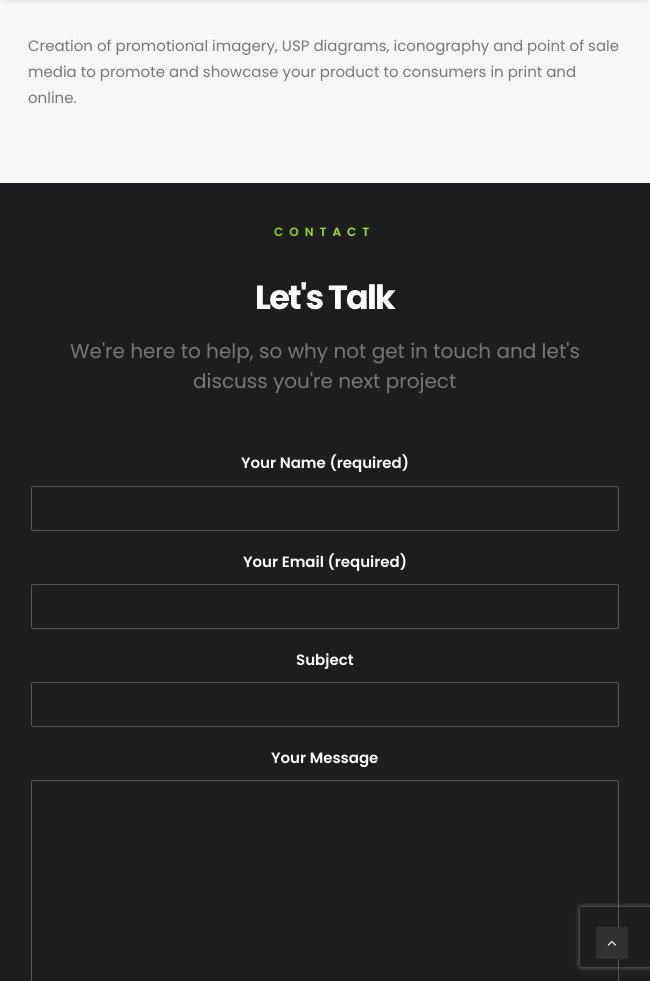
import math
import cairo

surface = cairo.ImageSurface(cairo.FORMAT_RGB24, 650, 981)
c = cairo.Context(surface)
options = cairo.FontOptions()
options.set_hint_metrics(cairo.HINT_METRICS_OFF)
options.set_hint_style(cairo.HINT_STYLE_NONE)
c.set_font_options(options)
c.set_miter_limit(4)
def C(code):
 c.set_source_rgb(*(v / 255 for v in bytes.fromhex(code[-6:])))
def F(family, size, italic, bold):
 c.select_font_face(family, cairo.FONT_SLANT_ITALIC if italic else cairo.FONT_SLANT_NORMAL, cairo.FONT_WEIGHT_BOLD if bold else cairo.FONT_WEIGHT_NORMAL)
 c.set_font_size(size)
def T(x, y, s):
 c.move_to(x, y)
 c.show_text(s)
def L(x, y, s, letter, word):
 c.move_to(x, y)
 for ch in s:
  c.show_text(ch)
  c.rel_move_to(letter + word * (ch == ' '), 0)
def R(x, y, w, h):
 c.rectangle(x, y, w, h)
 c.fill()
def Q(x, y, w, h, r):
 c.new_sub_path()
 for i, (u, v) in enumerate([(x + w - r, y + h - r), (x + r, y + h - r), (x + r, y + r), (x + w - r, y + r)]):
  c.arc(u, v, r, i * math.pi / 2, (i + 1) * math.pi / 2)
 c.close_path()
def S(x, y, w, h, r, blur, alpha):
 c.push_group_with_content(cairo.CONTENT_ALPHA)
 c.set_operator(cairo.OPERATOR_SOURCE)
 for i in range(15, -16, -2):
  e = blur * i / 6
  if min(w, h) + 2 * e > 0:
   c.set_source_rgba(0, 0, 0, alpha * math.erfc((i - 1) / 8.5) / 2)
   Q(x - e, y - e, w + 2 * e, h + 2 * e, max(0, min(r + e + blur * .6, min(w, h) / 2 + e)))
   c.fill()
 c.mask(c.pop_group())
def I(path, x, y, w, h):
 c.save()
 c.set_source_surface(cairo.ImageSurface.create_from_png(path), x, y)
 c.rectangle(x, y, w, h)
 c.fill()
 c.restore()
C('f7f7f7')
c.paint()
C('000000')
S(5,-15,640,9,0,5,.6)
F('Poppins',15,0,0)
C('777777')
T(28,51,'Creation of promotional imagery, USP diagrams, iconography and point of sale')
T(28,77,'media to promote and showcase your product to consumers in print and')
T(28,103,'online.')
C('1b1d1f')
R(0,183,650,798)
F('Poppins SemiBold',12,0,0)
gradient = cairo.RadialGradient(274,225,0,274,225,102)
gradient.add_color_stop_rgba(0,0.576,0.835,0,1)
gradient.add_color_stop_rgba(.98,0.643,0.933,0,1)
c.set_source(gradient)
L(274,236,'CONTACT',6,0)
F('Poppins',33.5,0,1)
C('ffffff')
L(255,309,'Let\'s Talk',-1.75,0)
F('Poppins',20,0,0)
C('777777')
T(70,358,'We\'re here to help, so why not get in touch and let\'s')
T(193,388,'discuss you\'re next project')
F('Poppins SemiBold',15,0,0)
C('ffffff')
T(241,468,'Your Name (required)')
Q(31.5,486.5,587,44,1.5)
C('545657')
c.set_line_width(1)
c.stroke()
C('ffffff')
T(243,567,'Your Email (required)')
Q(31.5,584.5,587,44,1.5)
C('545657')
c.stroke()
C('ffffff')
T(296,665,'Subject')
Q(31.5,682.5,587,44,1.5)
C('545657')
c.stroke()
C('ffffff')
T(271,763,'Your Message')
Q(31.5,780.5,587,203,1.5)
C('545657')
c.stroke()
c.save()
c.set_fill_rule(cairo.FILL_RULE_EVEN_ODD)
c.new_path()
c.move_to(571,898)
c.line_to(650,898)
c.line_to(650,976)
c.line_to(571,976)
c.close_path()
c.move_to(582,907)
c.line_to(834,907)
c.curve_to(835,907,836,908,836,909)
c.line_to(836,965)
c.curve_to(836,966,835,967,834,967)
c.line_to(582,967)
c.curve_to(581,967,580,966,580,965)
c.line_to(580,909)
c.curve_to(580,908,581,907,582,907)
c.close_path()
c.clip()
C('808080')
S(580,907,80,60,2,2.5,1)
c.restore()
C('303133')
Q(596.5,927.5,31,31,1.5)
c.fill_preserve()
c.stroke()
I('1.png',607,940,9,6)
surface.write_to_png('o.png')
